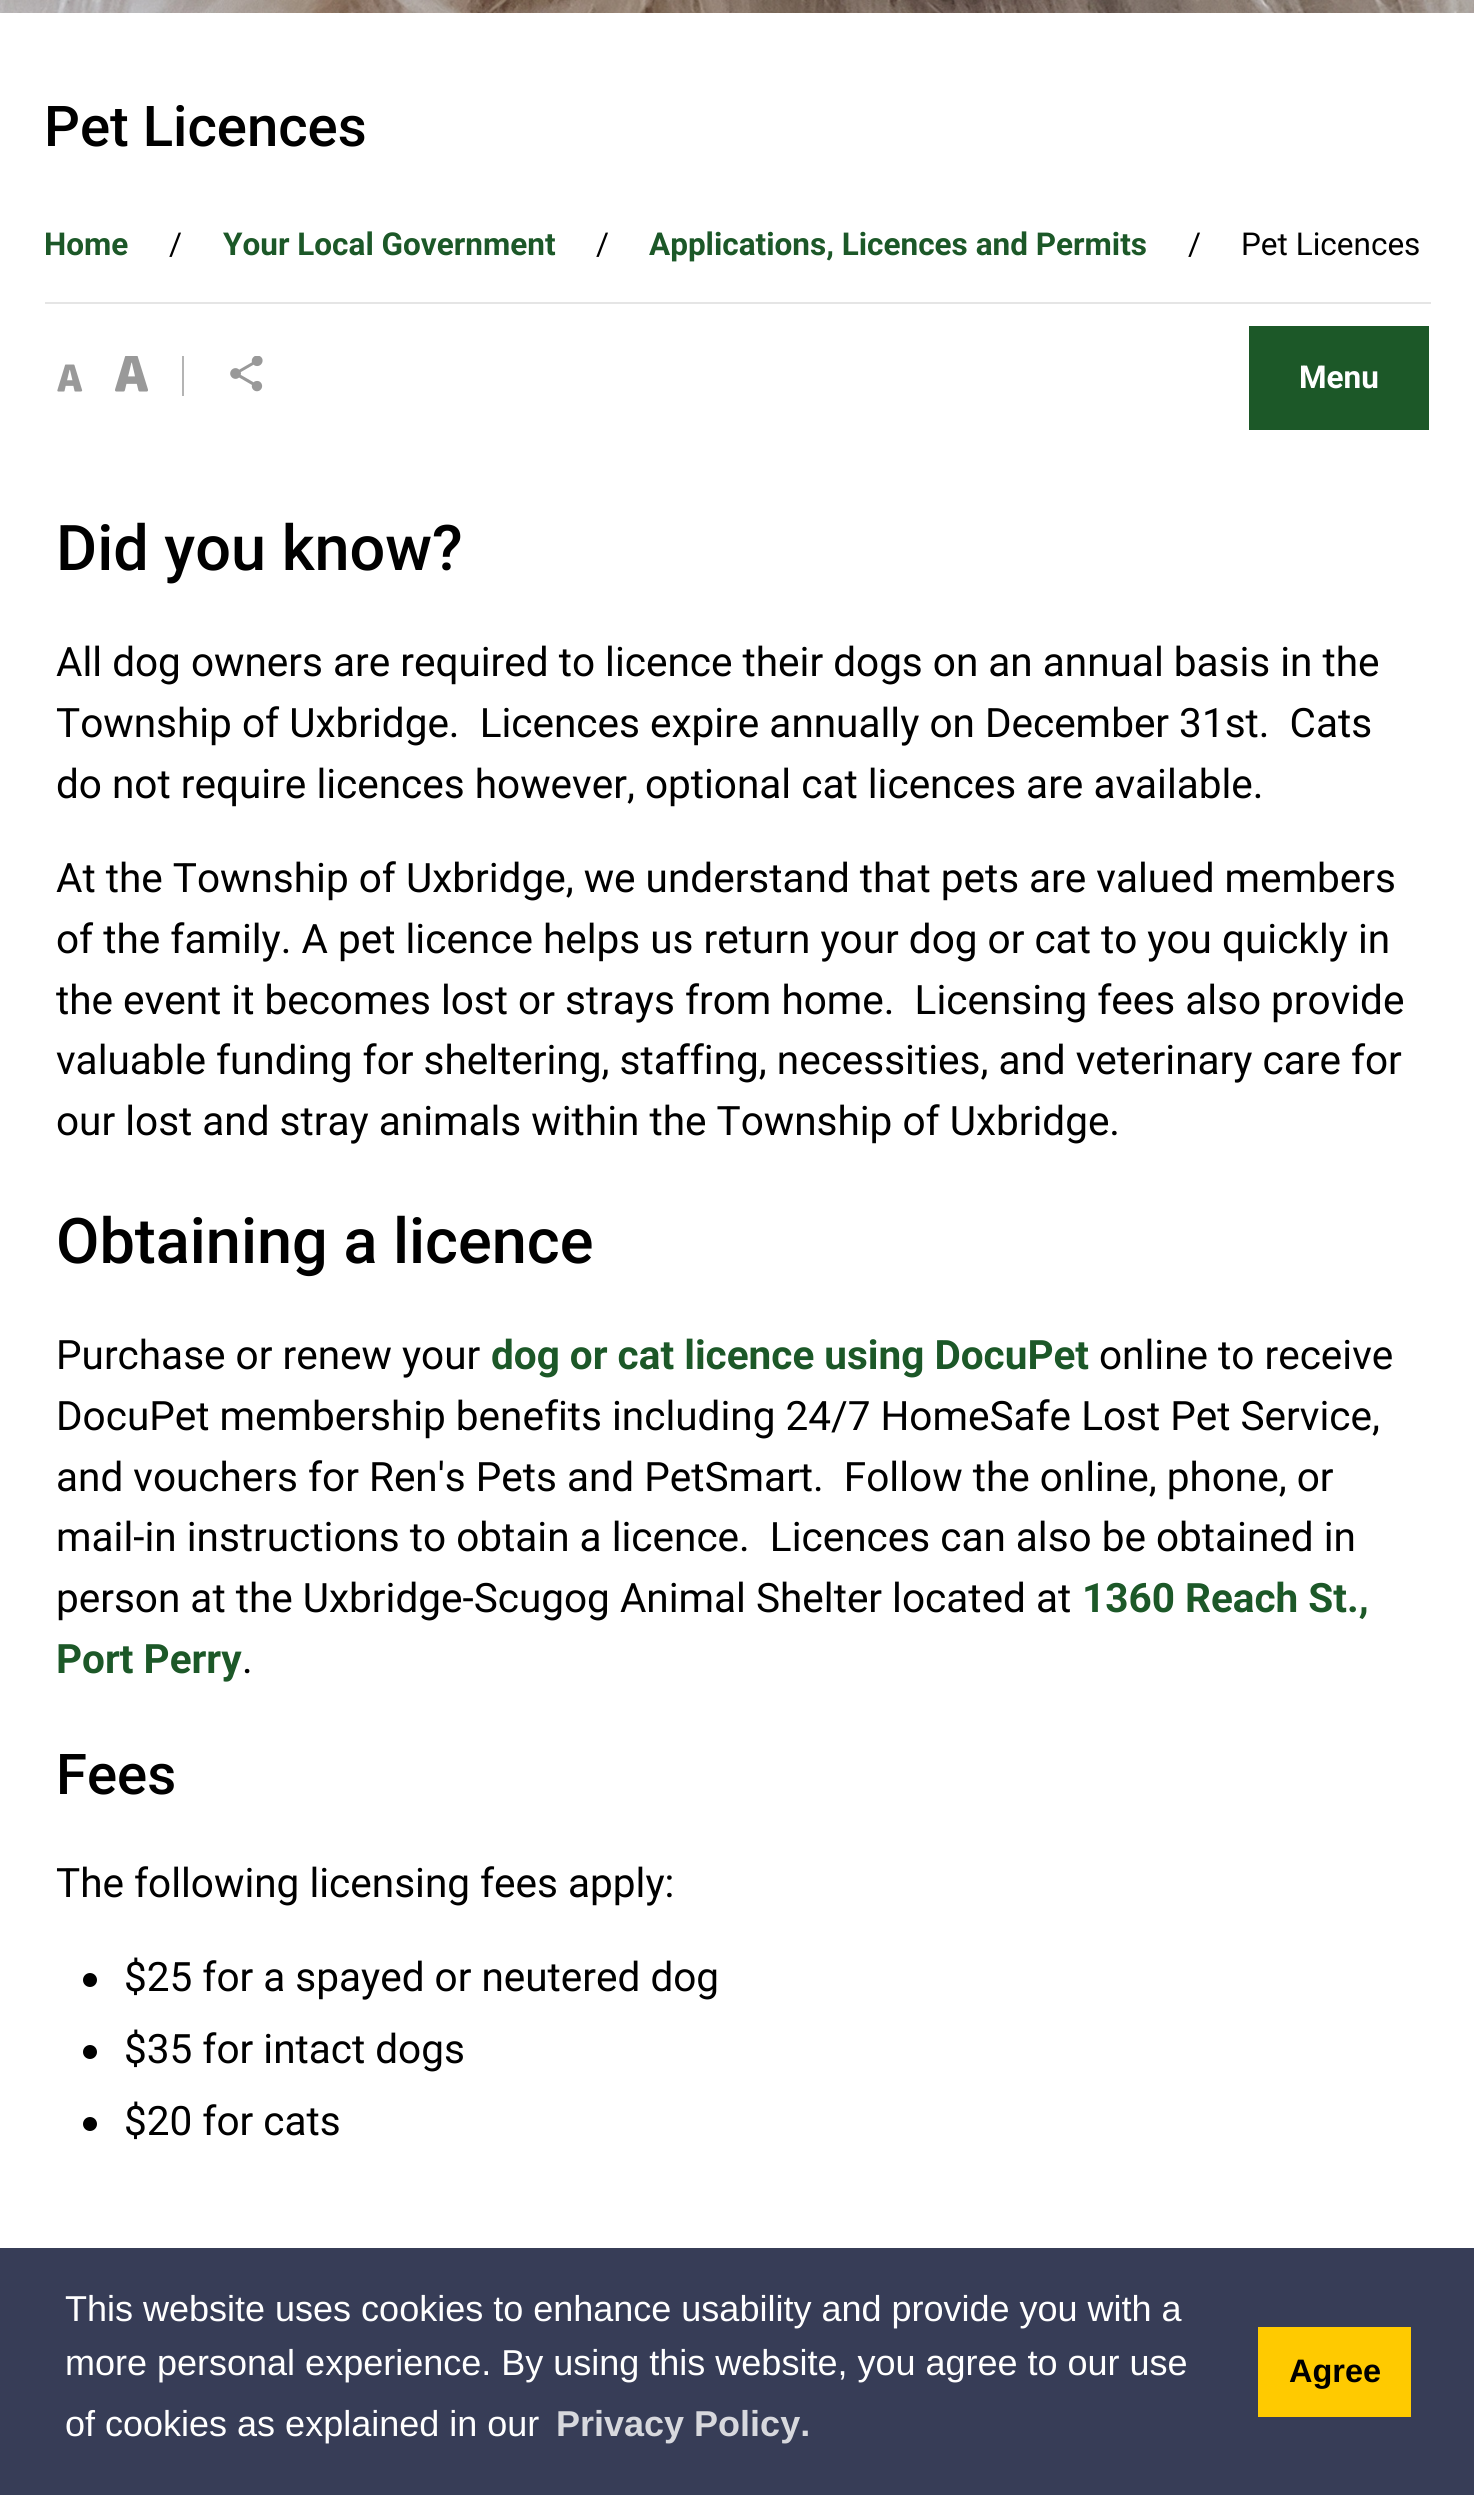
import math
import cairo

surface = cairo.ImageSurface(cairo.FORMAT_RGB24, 1474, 2495)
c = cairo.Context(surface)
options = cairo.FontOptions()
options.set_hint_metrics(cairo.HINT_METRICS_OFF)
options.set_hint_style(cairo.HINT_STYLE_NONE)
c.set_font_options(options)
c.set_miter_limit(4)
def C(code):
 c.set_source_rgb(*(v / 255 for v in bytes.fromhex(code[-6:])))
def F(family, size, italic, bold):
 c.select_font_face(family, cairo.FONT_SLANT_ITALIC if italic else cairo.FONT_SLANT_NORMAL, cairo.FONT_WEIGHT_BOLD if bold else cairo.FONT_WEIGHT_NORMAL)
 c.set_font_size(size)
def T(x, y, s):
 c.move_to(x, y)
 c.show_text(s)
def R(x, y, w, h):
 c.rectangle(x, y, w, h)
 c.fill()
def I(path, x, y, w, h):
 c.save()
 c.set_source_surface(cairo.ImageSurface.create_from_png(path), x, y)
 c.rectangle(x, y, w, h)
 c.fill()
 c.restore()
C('ffffff')
c.paint()
I('1.png',0,0,1474,13)
F('Roboto Medium',56.25,0,0)
C('000000')
T(44,146,'Pet Licences')
F('Roboto',31.5,0,1)
C('1c5828')
T(44,255,'Home')
F('Roboto',31.5,0,0)
C('000000')
T(169,255,'/')
F('Roboto',31.5,0,1)
C('1c5828')
T(223,255,'Your Local Government')
F('Roboto',31.5,0,0)
C('000000')
T(596,255,'/')
F('Roboto',31.5,0,1)
C('1c5828')
T(649,255,'Applications, Licences and Permits')
F('Roboto',31.5,0,0)
C('000000')
T(1188,255,'/')
T(1241,255,'Pet Licences')
C('e5e5e5')
R(45,302,1386,2)
I('2.png',57,364,26,28)
I('3.png',115,356,33,36)
C('b4b4b4')
R(182,356,2,40)
I('4.png',230,356,33,36)
C('1c5828')
R(1249,326,180,104)
F('Roboto',31.5,0,1)
C('ffffff')
T(1299,388,'Menu')
F('Roboto Medium',63,0,0)
C('000000')
T(56,570,'Did you know?')
F('Roboto',40.5,0,0)
T(56,676,'All dog owners are required to licence their dogs on an annual basis in the')
T(56,737,'Township of Uxbridge.  Licences expire annually on December 31st.  Cats')
T(56,798,'do not require licences however, optional cat licences are available.')
T(56,892,'At the Township of Uxbridge, we understand that pets are valued members')
T(56,953,'of the family. A pet licence helps us return your dog or cat to you quickly in')
T(56,1014,'the event it becomes lost or strays from home.  Licensing fees also provide')
T(56,1074,'valuable funding for sheltering, staffing, necessities, and veterinary care for')
T(56,1135,'our lost and stray animals within the Township of Uxbridge.')
F('Roboto Medium',63,0,0)
T(56,1263,'Obtaining a licence')
F('Roboto',40.5,0,0)
T(56,1369,'Purchase or renew your')
F('Roboto',40.5,0,1)
C('1c5828')
T(491,1369,'dog or cat licence using DocuPet')
F('Roboto',40.5,0,0)
C('000000')
T(1099,1369,'online to receive')
T(56,1430,'DocuPet membership benefits including 24/7 HomeSafe Lost Pet Service,')
T(56,1491,'and vouchers for Ren\'s Pets and PetSmart.  Follow the online, phone, or')
T(56,1551,'mail-in instructions to obtain a licence.  Licences can also be obtained in')
T(56,1612,'person at the Uxbridge-Scugog Animal Shelter located at')
F('Roboto',40.5,0,1)
C('1c5828')
T(1082,1612,'1360 Reach St.,')
T(56,1673,'Port Perry')
F('Roboto',40.5,0,0)
C('000000')
T(242,1673,'.')
F('Roboto Medium',56.25,0,0)
T(56,1794,'Fees')
F('Roboto',40.5,0,0)
T(56,1897,'The following licensing fees apply:')
c.new_path()
c.arc(90,1980,7,0,2 * math.pi)
c.fill()
T(124,1991,'$25 for a spayed or neutered dog')
c.new_path()
c.arc(90,2052,7,0,2 * math.pi)
c.fill()
T(124,2063,'$35 for intact dogs')
c.new_path()
c.arc(90,2124,7,0,2 * math.pi)
c.fill()
T(124,2135,'$20 for cats')
C('373d57')
R(0,2248,1474,247)
F('Liberation Sans',36,0,0)
C('ffffff')
T(65,2321,'This website uses cookies to enhance usability and provide you with a')
T(65,2375,'more personal experience. By using this website, you agree to our use')
T(65,2436,'of cookies as explained in our')
F('Liberation Sans',36,0,1)
C('d7d8dd')
T(556,2436,'Privacy Policy.')
C('ffca00')
R(1258,2327,153,90)
F('Liberation Sans',32.5,0,1)
C('000000')
T(1289,2382,'Agree')
surface.write_to_png('o.png')
